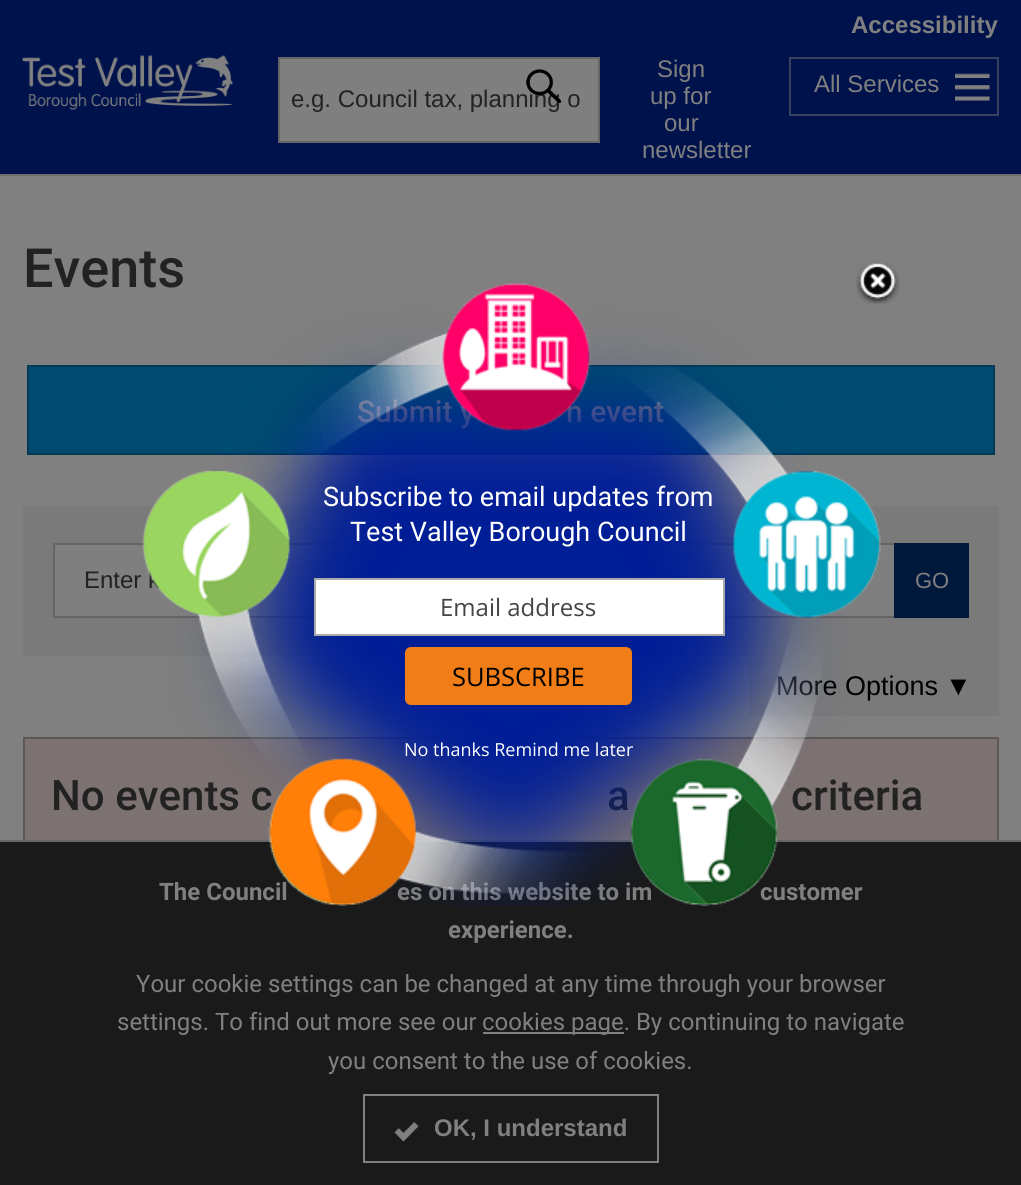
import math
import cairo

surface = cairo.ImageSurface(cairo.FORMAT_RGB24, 1021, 1185)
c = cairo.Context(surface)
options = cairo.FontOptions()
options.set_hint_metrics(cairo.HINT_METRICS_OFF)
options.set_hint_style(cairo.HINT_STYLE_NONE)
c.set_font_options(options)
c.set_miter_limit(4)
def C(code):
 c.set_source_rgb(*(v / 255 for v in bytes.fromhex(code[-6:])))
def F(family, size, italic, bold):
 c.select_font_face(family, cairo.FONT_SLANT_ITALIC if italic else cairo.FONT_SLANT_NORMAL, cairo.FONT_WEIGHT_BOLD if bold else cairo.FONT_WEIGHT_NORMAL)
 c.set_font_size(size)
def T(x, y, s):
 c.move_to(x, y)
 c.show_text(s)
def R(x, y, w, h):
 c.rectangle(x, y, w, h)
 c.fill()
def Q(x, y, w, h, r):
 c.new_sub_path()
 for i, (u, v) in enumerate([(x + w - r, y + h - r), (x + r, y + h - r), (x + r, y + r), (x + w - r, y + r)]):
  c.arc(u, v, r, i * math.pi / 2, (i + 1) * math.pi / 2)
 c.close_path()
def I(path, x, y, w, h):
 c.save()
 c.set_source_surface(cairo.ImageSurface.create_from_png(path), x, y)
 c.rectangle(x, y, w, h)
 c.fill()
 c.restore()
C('808080')
c.paint()
C('00124b')
R(0,0,1021,174)
F('Liberation Sans',24,0,1)
C('808080')
T(851,33,'Accessibility')
I('1.png',22,55,211,55)
F('Liberation Sans',24,0,0)
T(657,77,'Sign')
T(650,104,'up for')
T(664,131,'our')
T(642,158,'newsletter')
I('2.png',955,73,35,28)
c.rectangle(790,58,208,57)
C('374162')
c.stroke()
C('808080')
T(814,92,'All Services')
C('7f7f7f')
c.rectangle(279,58,320,84)
c.fill_preserve()
C('656565')
c.stroke()
C('222222')
T(291,107,'e.g. Council tax, planning o')
I('3.png',526,69,35,34)
C('6a6c6d')
R(0,174,1021,2)
F('Roboto Medium',54,0,0)
C('222222')
T(23,287,'Events')
C('004b6f')
c.rectangle(28,366,966,88)
c.fill_preserve()
C('023a54')
c.stroke()
F('Roboto Medium',30,0,0)
C('808080')
T(357,422,'Submit y')
T(566,422,'n event')
C('7a7a7a')
R(23,506,976,150)
C('7f7f7f')
R(55,545,839,71)
c.rectangle(54,544,914,73)
C('656565')
c.stroke()
F('Liberation Sans',24,0,0)
C('222222')
T(84,588,'Enter k')
C('00183c')
R(894,543,75,75)
F('Liberation Sans',22,0,0)
C('808080')
T(915,588,'GO')
C('7a7a7a')
R(749,656,250,60)
F('Liberation Sans',27,0,0)
C('000000')
T(776,695,'More Options')
F('Liberation Sans',27,0,1)
T(945,695,'▼')
C('7c7271')
R(25,739,972,101)
c.rectangle(24,738,974,167)
C('5e5756')
c.stroke()
F('Roboto Medium',42,0,0)
C('222222')
T(51,810,'No events c')
T(607,810,'a')
T(791,810,'criteria')
C('1a1a1a')
R(0,842,1021,343)
C('666666')
R(0,840,1021,2)
F('Roboto',24,0,1)
C('808080')
T(159,900,'The Council')
T(397,900,'es on this website to im')
T(760,900,'customer')
I('4.png',142,283,739,623)
I('5.png',856,262,44,42)
F('Roboto',27,0,0)
C('ffffff')
T(323,506,'Subscribe to email updates from')
T(350,541,'Test Valley Borough Council')
c.rectangle(315,579,409,56)
c.fill_preserve()
C('aaaaaa')
c.stroke()
F('Open Sans',24,0,0)
C('444444')
T(440,616,'Email address')
C('f07d17')
Q(406,648,225,56,5)
c.fill_preserve()
c.stroke()
F('Open Sans',25.5,0,0)
C('000000')
T(452,686,'SUBSCRIBE')
F('Open Sans',18,0,0)
C('ffffff')
T(404,756,'No thanks Remind me later')
F('Roboto',24,0,1)
C('808080')
T(448,938,'experience.')
F('Roboto',24,0,0)
T(136,992,'Your cookie settings can be changed at any time through your browser')
T(117,1030,'settings. To find out more see our')
R(483,1032,141,2)
T(482,1030,'cookies page. By continuing to navigate')
T(328,1069,'you consent to the use of cookies.')
c.rectangle(364,1095,294,67)
c.stroke()
I('6.png',394,1122,25,20)
F('Liberation Sans',24,0,1)
T(434,1136,'OK, I understand')
surface.write_to_png('o.png')
